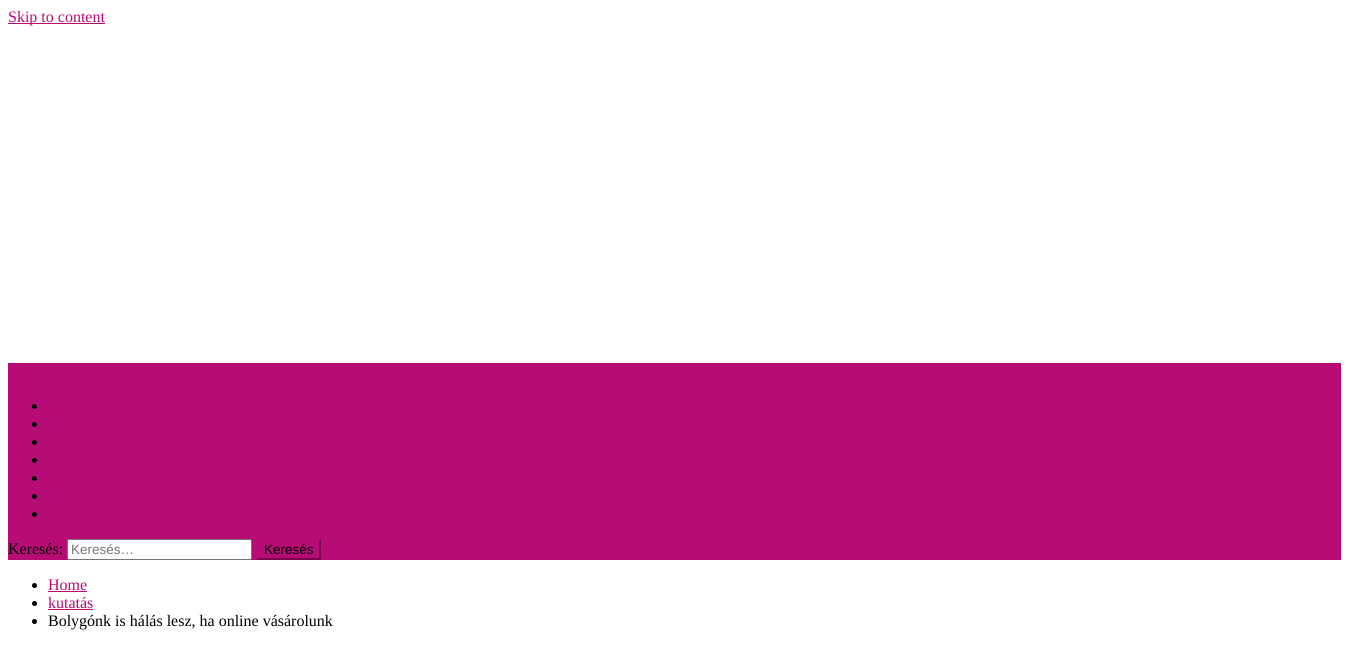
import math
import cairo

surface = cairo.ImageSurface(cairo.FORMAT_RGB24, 1349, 655)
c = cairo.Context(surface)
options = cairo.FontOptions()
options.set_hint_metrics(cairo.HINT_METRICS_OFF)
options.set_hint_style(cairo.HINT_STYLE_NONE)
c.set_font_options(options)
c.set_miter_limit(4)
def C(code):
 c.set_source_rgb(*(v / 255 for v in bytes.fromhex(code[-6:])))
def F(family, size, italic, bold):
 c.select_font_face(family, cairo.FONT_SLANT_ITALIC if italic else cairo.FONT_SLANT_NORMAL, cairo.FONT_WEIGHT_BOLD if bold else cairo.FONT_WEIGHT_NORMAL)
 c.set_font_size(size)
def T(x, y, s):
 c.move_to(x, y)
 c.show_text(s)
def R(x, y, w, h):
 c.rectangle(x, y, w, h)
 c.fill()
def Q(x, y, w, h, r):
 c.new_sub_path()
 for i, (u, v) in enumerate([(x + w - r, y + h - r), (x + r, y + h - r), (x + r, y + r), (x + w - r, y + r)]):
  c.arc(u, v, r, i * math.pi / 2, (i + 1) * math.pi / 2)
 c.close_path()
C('ffffff')
c.paint()
C('b70b75')
R(8,23,97,1)
F('Liberation Serif',16,0,0)
T(8,22,'Skip to content')
R(8,363,1333,197)
C('000000')
c.new_path()
c.arc(34.5,406.5,2.5,0,2 * math.pi)
c.fill()
c.arc(34.5,424.5,2.5,0,2 * math.pi)
c.fill()
c.arc(34.5,442.5,2.5,0,2 * math.pi)
c.fill()
c.arc(34.5,460.5,2.5,0,2 * math.pi)
c.fill()
c.arc(34.5,478.5,2.5,0,2 * math.pi)
c.fill()
c.arc(34.5,496.5,2.5,0,2 * math.pi)
c.fill()
c.arc(34.5,514.5,2.5,0,2 * math.pi)
c.fill()
T(8,554,'Keresés:')
C('ffffff')
Q(67.5,539.5,184,20,1.5)
c.fill_preserve()
C('767676')
c.set_line_width(1)
c.stroke()
F('Liberation Sans',13.5,0,0)
C('757575')
T(71,554,'Keresés…')
C('7a074e')
c.new_path()
c.move_to(321,539)
c.line_to(321,560)
c.line_to(319,558)
c.line_to(319,541)
c.close_path()
c.fill()
c.new_path()
c.move_to(321,560)
c.line_to(256,560)
c.line_to(258,558)
c.line_to(319,558)
c.close_path()
c.fill()
C('b70b75')
c.new_path()
c.move_to(256,560)
c.line_to(256,539)
c.line_to(258,541)
c.line_to(258,558)
c.close_path()
c.fill()
C('000000')
T(264,554,'Keresés')
c.new_path()
c.arc(34.5,585.5,2.5,0,2 * math.pi)
c.fill()
F('Liberation Serif',16,0,0)
C('b70b75')
T(48,590,'Home')
R(48,591,39,1)
C('000000')
c.new_path()
c.arc(34.5,603.5,2.5,0,2 * math.pi)
c.fill()
C('b70b75')
T(48,608,'kutatás')
R(48,609,45,1)
C('000000')
c.new_path()
c.arc(34.5,621.5,2.5,0,2 * math.pi)
c.fill()
T(48,626,'Bolygónk is hálás lesz, ha online vásárolunk')
surface.write_to_png('o.png')
